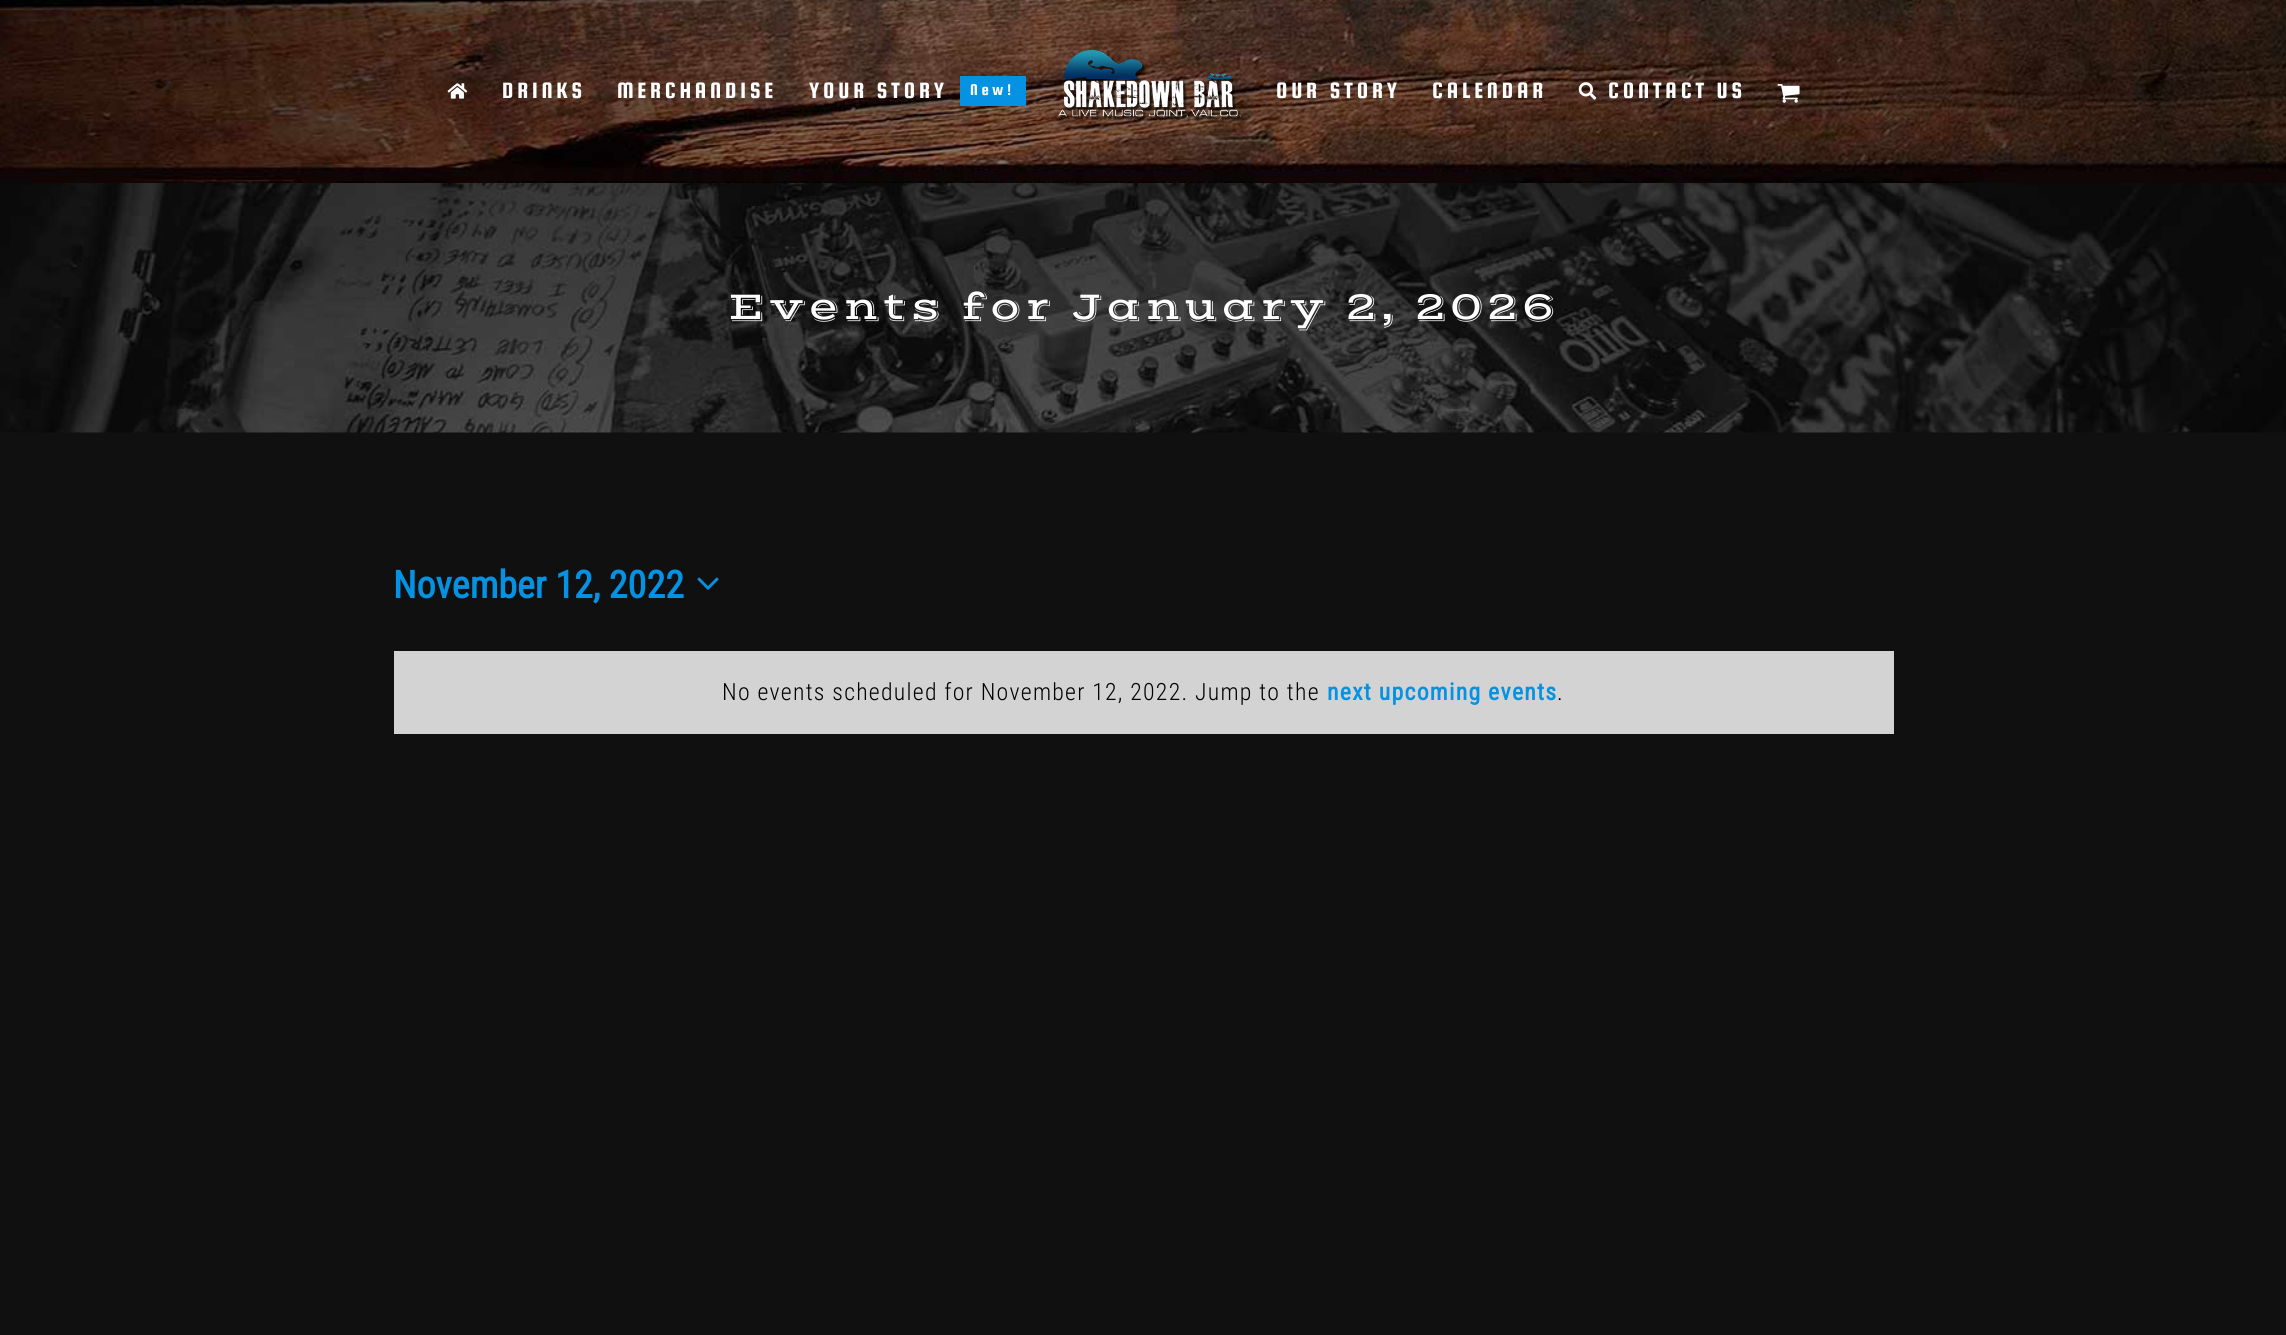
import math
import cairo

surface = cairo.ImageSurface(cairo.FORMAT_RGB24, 2286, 1335)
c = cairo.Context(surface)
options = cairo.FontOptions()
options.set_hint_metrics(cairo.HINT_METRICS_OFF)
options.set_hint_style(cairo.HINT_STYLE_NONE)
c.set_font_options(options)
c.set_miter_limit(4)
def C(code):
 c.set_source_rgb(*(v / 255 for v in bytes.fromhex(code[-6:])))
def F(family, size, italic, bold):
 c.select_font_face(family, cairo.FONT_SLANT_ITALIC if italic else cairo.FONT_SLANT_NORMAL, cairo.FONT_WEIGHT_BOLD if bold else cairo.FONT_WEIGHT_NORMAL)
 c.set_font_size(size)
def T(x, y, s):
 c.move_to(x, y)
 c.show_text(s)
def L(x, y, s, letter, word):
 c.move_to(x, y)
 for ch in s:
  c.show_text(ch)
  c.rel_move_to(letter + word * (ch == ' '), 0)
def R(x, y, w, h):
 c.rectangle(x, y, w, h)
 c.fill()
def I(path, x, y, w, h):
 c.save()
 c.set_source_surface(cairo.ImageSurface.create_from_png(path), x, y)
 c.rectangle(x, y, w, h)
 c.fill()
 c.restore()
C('101010')
c.paint()
I('1.png',0,0,2286,183)
I('2.png',447,83,21,16)
F('Squada One',23.75,0,0)
C('ffffff')
L(502,98,'DRINKS',3.75,0)
L(617,98,'MERCHANDISE',3.75,0)
L(809,98,'YOUR STORY',3.75,0)
C('0692e2')
R(960,76,66,30)
F('Squada One',16.5,0,0)
C('ffffff')
L(970,95,'New!',3.75,0)
I('3.png',1058,50,186,72)
F('Squada One',23.75,0,0)
L(1276,98,'OUR STORY',3.75,0)
L(1432,98,'CALENDAR',3.75,0)
I('4.png',1578,82,19,18)
L(1608,98,'CONTACT US',3.75,0)
I('5.png',1777,84,23,19)
I('6.png',0,183,2286,250)
F('Vast Shadow',40,0,0)
L(728,319,'Events for January 2, 2026',3.75,0)
F('Roboto Condensed',38,0,1)
C('0692e2')
T(393,598,'November 12, 2022')
I('7.png',697,577,22,13)
C('d3d3d3')
R(394,651,1500,83)
F('Roboto Condensed Light',23.75,0,0)
C('000000')
L(722,700,'No events scheduled for November 12, 2022. Jump to the',1.25,0)
F('Roboto Condensed',23.75,0,1)
C('0692e2')
L(1327,700,'next upcoming events',1.25,0)
F('Roboto Condensed Light',23.75,0,0)
C('000000')
L(1557,700,'.',1.25,0)
surface.write_to_png('o.png')
